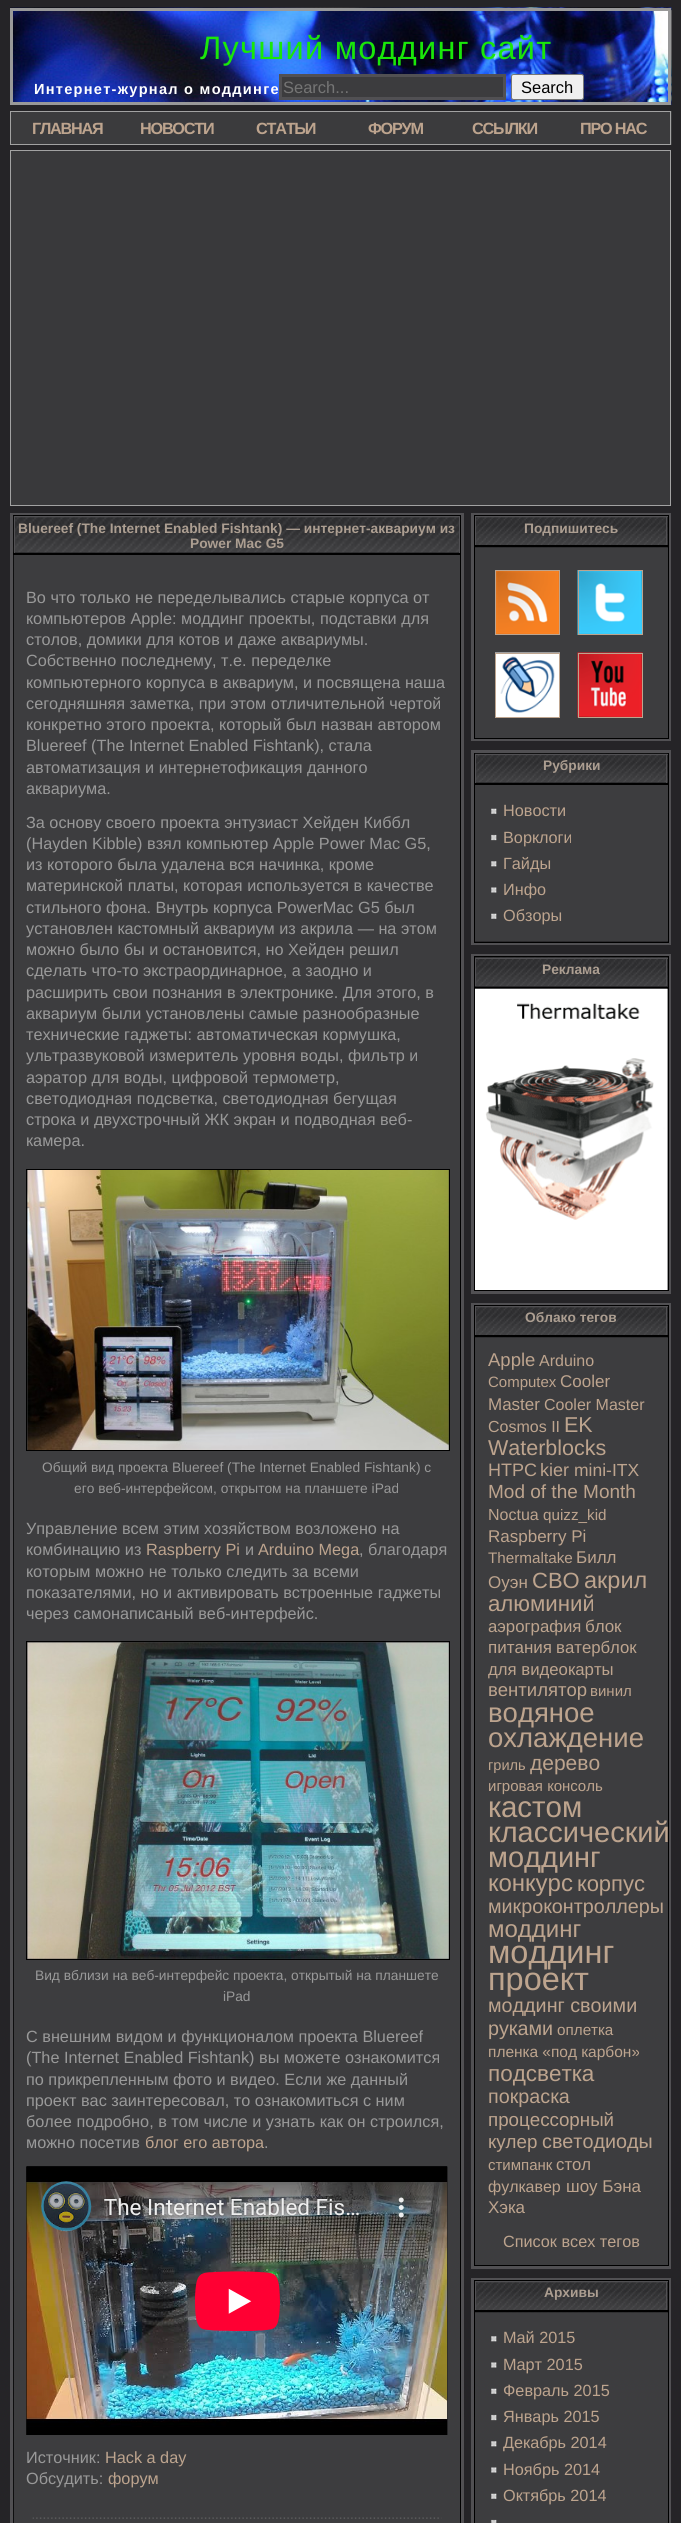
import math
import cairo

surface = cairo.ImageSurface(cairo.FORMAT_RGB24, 681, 2523)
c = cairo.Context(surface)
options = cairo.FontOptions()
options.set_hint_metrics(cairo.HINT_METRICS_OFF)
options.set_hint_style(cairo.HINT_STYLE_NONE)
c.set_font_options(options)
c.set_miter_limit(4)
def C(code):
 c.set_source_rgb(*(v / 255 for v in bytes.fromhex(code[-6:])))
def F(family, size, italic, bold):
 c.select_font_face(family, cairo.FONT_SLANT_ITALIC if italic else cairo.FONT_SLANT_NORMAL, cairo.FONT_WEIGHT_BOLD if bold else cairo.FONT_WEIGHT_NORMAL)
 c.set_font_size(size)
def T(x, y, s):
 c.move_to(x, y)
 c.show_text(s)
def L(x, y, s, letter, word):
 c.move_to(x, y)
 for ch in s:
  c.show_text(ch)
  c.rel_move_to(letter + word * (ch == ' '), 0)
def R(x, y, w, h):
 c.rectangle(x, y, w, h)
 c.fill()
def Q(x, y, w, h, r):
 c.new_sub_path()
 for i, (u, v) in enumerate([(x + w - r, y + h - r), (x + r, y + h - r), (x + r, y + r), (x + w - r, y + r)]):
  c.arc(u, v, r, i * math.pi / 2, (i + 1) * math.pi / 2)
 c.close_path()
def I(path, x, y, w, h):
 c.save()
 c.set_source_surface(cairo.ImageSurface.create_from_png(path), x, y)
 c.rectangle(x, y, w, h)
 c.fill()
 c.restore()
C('252427')
c.paint()
I('1.png',10,7,662,98)
c.rectangle(11.5,9.5,658,94)
C('999999')
c.set_line_width(3)
c.stroke()
F('Liberation Sans',32.5,0,0)
C('1ae709')
L(200,59,'Лучший моддинг сайт',1.25,0)
F('Liberation Sans',14.6,0,1)
C('ffffff')
L(34,94,'Интернет-журнал о моддинге',1.25,0)
C('3c3c3e')
c.rectangle(280.5,75.5,224,23)
c.fill_preserve()
C('515053')
c.stroke()
F('Liberation Sans',16.5,0,0)
C('757575')
T(283,93,'Search...')
C('efefef')
Q(511.5,74.5,72,25,2)
c.fill_preserve()
C('767676')
c.set_line_width(1)
c.stroke()
C('000000')
T(521,93,'Search')
C('3b3b3d')
R(11,111,661,34)
c.rectangle(10.5,111.5,660,33)
C('a2a2a2')
c.stroke()
F('Liberation Sans',16.25,0,1)
C('bda48e')
L(32,134,'ГЛАВНАЯ',-1.25,0)
L(140,134,'НОВОСТИ',-1.25,0)
L(256,134,'СТАТЬИ',-1.25,0)
L(368,134,'ФОРУМ',-1.25,0)
L(472,134,'ССЫЛКИ',-1.25,0)
L(580,134,'ПРО НАС',-1.25,0)
C('39393b')
c.rectangle(10.5,150.5,660,355)
c.fill_preserve()
C('a2a2a2')
c.stroke()
c.rectangle(11.5,514.5,451,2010)
C('515053')
c.set_line_width(3)
c.stroke()
c.rectangle(13.5,515.5,447,38)
C('000000')
c.set_line_width(1)
c.stroke()
I('2.png',13,516,446,37)
C('515053')
R(14,516,446,1)
R(459,516,1,37)
R(14,516,1,37)
F('Liberation Sans',13.75,0,1)
C('ac9e91')
T(18,533,'Bluereef (The Internet Enabled Fishtank) — интернет-аквариум из')
T(190,548,'Power Mac G5')
c.rectangle(13.5,554.5,447,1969)
C('000000')
c.stroke()
C('3d3d3f')
R(14,555,446,1968)
I('3.png',13,555,1,1968)
F('Liberation Sans',16.25,0,0)
C('999999')
T(26,603,'Во что только не переделывались старые корпуса от')
T(26,624,'компьютеров Apple: моддинг проекты, подставки для')
T(26,645,'столов, домики для котов и даже аквариумы.')
T(26,666,'Собственно последнему, т.е. переделке')
T(26,688,'компьютерного корпуса в аквариум, и посвящена наша')
T(26,709,'сегодняшняя заметка, при этом отличительной чертой')
T(26,730,'конкретно этого проекта, который был назван автором')
T(26,751,'Bluereef (The Internet Enabled Fishtank), стала')
T(26,773,'автоматизация и интернетофикация данного')
T(26,794,'аквариума.')
T(26,828,'За основу своего проекта энтузиаст Хейден Киббл')
T(26,849,'(Hayden Kibble) взял компьютер Apple Power Mac G5,')
T(26,870,'из которого была удалена вся начинка, кроме')
T(26,891,'материнской платы, которая используется в качестве')
T(26,913,'стильного фона. Внутрь корпуса PowerMac G5 был')
T(26,934,'установлен кастомный аквариум из акрила — на этом')
T(26,955,'можно было бы и остановится, но Хейден решил')
T(26,976,'сделать что-то экстраординарное, а заодно и')
T(26,998,'расширить свои познания в электронике. Для этого, в')
T(26,1019,'аквариум были установлены самые разнообразные')
T(26,1040,'технические гаджеты: автоматическая кормушка,')
T(26,1061,'ультразвуковой измеритель уровня воды, фильтр и')
T(26,1083,'аэратор для воды, цифровой термометр,')
T(26,1104,'светодиодная подсветка, светодиодная бегущая')
T(26,1125,'строка и двухстрочный ЖК экран и подводная веб-')
T(26,1146,'камера.')
c.rectangle(26.5,1169.5,423,281)
C('000000')
c.stroke()
I('4.png',27,1170,422,280)
F('Liberation Sans',13.75,0,0)
C('999999')
T(42,1472,'Общий вид проекта Bluereef (The Internet Enabled Fishtank) с')
T(74,1493,'его веб-интерфейсом, открытом на планшете iPad')
F('Liberation Sans',16.25,0,0)
T(26,1534,'Управление всем этим хозяйством возложено на')
T(26,1555,'комбинацию из')
C('bda48e')
T(146,1555,'Raspberry Pi')
C('999999')
T(245,1555,'и')
C('bda48e')
T(258,1555,'Arduino Mega')
C('999999')
T(359,1555,', благодаря')
T(26,1577,'которым можно не только следить за всеми')
T(26,1598,'показателями, но и активировать встроенные гаджеты')
T(26,1619,'через самонаписаный веб-интерфейс.')
c.rectangle(26.5,1641.5,423,318)
C('000000')
c.stroke()
I('5.png',27,1642,422,317)
F('Liberation Sans',13.75,0,0)
C('999999')
T(35,1980,'Вид вблизи на веб-интерфейс проекта, открытый на планшете')
T(223,2001,'iPad')
F('Liberation Sans',16.25,0,0)
T(26,2042,'С внешним видом и функционалом проекта Bluereef')
T(26,2063,'(The Internet Enabled Fishtank) вы можете ознакомится')
T(26,2085,'по прикрепленным фото и видео. Если же данный')
T(26,2106,'проект вас заинтересовал, то ознакомиться с ним')
T(26,2127,'более подробно, в том числе и узнать как он строился,')
T(26,2148,'можно посетив')
C('bda48e')
T(145,2148,'блог его автора')
C('999999')
T(264,2148,'.')
I('6.png',26,2166,422,269)
T(26,2463,'Источник:')
C('bda48e')
T(105,2463,'Hack a day')
C('999999')
T(26,2484,'Обсудить:')
C('bda48e')
T(108,2484,'форум')
I('7.png',32,2517,410,2)
c.rectangle(472.5,514.5,197,225)
C('515053')
c.set_line_width(3)
c.stroke()
c.rectangle(474.5,515.5,194,30)
C('000000')
c.set_line_width(1)
c.stroke()
I('8.png',476,517,192,28)
C('515053')
R(475,516,193,1)
R(666,516,1,29)
R(475,516,1,29)
F('Liberation Sans',13.75,0,1)
C('ac9e91')
T(524,533,'Подпишитесь')
c.rectangle(474.5,546.5,194,192)
C('000000')
c.stroke()
C('3d3d3f')
R(475,548,193,190)
I('9.png',475,547,193,1)
I('10.png',496,571,63,63)
c.rectangle(495.5,570.5,64,64)
C('bda48e')
c.stroke()
I('11.png',577,570,65,65)
c.rectangle(578.5,570.5,64,64)
c.stroke()
I('12.png',495,652,65,65)
c.rectangle(495.5,653.5,64,64)
c.stroke()
I('13.png',577,652,66,66)
c.rectangle(578.5,653.5,64,64)
c.stroke()
c.rectangle(472.5,751.5,197,192)
C('515053')
c.set_line_width(3)
c.stroke()
c.rectangle(474.5,753.5,194,30)
C('000000')
c.set_line_width(1)
c.stroke()
I('14.png',475,753,193,30)
C('515053')
R(475,754,193,1)
R(666,754,1,29)
R(475,754,1,29)
C('ac9e91')
T(543,770,'Рубрики')
c.rectangle(474.5,784.5,194,158)
C('000000')
c.stroke()
C('3d3d3f')
R(475,785,193,156)
I('15.png',475,941,192,1)
I('16.png',491,808,6,6)
F('Liberation Sans',16.25,0,0)
C('bda48e')
T(503,816,'Новости')
I('17.png',491,834,6,7)
T(503,843,'Ворклоги')
I('18.png',491,861,6,6)
T(503,869,'Гайды')
I('19.png',491,887,6,6)
T(503,895,'Инфо')
I('16.png',491,913,6,6)
T(503,921,'Обзоры')
c.rectangle(472.5,955.5,197,337)
C('515053')
c.set_line_width(3)
c.stroke()
c.rectangle(474.5,956.5,194,31)
C('000000')
c.set_line_width(1)
c.stroke()
I('20.png',475,957,193,30)
C('515053')
R(475,958,193,1)
R(666,958,1,28)
R(475,958,1,28)
F('Liberation Sans',13.75,0,1)
C('ac9e91')
T(542,974,'Реклама')
c.rectangle(474.5,988.5,194,302)
C('000000')
c.stroke()
C('3d3d3f')
R(667,989,1,301)
I('21.png',475,988,193,1)
I('22.png',475,988,193,302)
c.rectangle(472.5,1304.5,197,963)
C('515053')
c.set_line_width(3)
c.stroke()
c.rectangle(474.5,1305.5,194,30)
C('000000')
c.set_line_width(1)
c.stroke()
I('8.png',476,1307,192,28)
C('515053')
R(475,1306,193,1)
R(666,1306,1,29)
R(475,1306,1,29)
C('ac9e91')
T(525,1322,'Облако тегов')
c.rectangle(474.5,1336.5,194,929)
C('000000')
c.stroke()
C('3d3d3f')
R(475,1338,193,927)
I('9.png',475,1337,193,1)
F('Liberation Sans',18.5,0,0)
C('bda48e')
T(488,1366,'Apple')
F('Liberation Sans',16,0,0)
T(539,1366,'Arduino')
F('Liberation Sans',15,0,0)
T(488,1387,'Computex')
F('Liberation Sans',17,0,0)
T(560,1387,'Cooler')
T(488,1410,'Master')
F('Liberation Sans',16,0,0)
T(544,1410,'Cooler Master')
T(488,1432,'Cosmos II')
F('Liberation Sans',21.5,0,0)
T(564,1432,'EK')
T(488,1455,'Waterblocks')
F('Liberation Sans',18,0,0)
T(488,1476,'HTPC')
T(540,1476,'kier')
F('Liberation Sans',17.5,0,0)
T(574,1476,'mini-ITX')
F('Liberation Sans',19,0,0)
T(488,1498,'Mod of the Month')
F('Liberation Sans',16,0,0)
T(488,1520,'Noctua')
F('Liberation Sans',15.25,0,0)
T(543,1520,'quizz_kid')
F('Liberation Sans',17,0,0)
T(488,1542,'Raspberry Pi')
F('Liberation Sans',15.25,0,0)
T(488,1563,'Thermaltake')
F('Liberation Sans',17,0,0)
T(576,1563,'Билл')
T(488,1588,'Оуэн')
F('Liberation Sans',22,0,0)
T(532,1588,'СВО')
F('Liberation Sans',23.5,0,0)
T(584,1588,'акрил')
F('Liberation Sans',22.25,0,0)
T(488,1611,'алюминий')
F('Liberation Sans',16.75,0,0)
T(488,1632,'аэрография')
F('Liberation Sans',17,0,0)
T(585,1632,'блок')
T(488,1653,'питания')
F('Liberation Sans',16.75,0,0)
T(556,1653,'ватерблок')
T(488,1675,'для видеокарты')
F('Liberation Sans',18.5,0,0)
T(488,1696,'вентилятор')
F('Liberation Sans',15,0,0)
T(590,1696,'винил')
F('Liberation Sans',27.5,0,0)
T(488,1722,'водяное')
T(488,1747,'охлаждение')
F('Liberation Sans',14.6,0,0)
T(488,1770,'гриль')
F('Liberation Sans',21,0,0)
T(530,1770,'дерево')
F('Liberation Sans',15,0,0)
T(488,1791,'игровая консоль')
F('Liberation Sans',29.5,0,0)
T(488,1817,'кастом')
F('Liberation Sans',29,0,0)
T(488,1842,'классический')
T(488,1867,'моддинг')
F('Liberation Sans',24,0,0)
T(488,1891,'конкурс')
F('Liberation Sans',22,0,0)
T(577,1891,'корпус')
F('Liberation Sans',19.75,0,0)
T(488,1913,'микроконтроллеры')
F('Liberation Sans',24,0,0)
T(488,1937,'моддинг')
F('Liberation Sans',32.5,0,0)
T(488,1963,'моддинг')
T(488,1990,'проект')
F('Liberation Sans',19.75,0,0)
T(488,2012,'моддинг своими')
T(488,2035,'руками')
F('Liberation Sans',15.25,0,0)
T(557,2035,'оплетка')
F('Liberation Sans',15.5,0,0)
T(488,2057,'пленка «под карбон»')
F('Liberation Sans',22.5,0,0)
T(488,2081,'подсветка')
F('Liberation Sans',19.75,0,0)
T(488,2103,'покраска')
F('Liberation Sans',18.75,0,0)
T(488,2126,'процессорный')
T(488,2148,'кулер')
F('Liberation Sans',19.75,0,0)
T(542,2148,'светодиоды')
F('Liberation Sans',15,0,0)
T(488,2170,'стимпанк')
F('Liberation Sans',16.75,0,0)
T(556,2170,'стол')
F('Liberation Sans',16,0,0)
T(488,2192,'фулкавер')
F('Liberation Sans',17,0,0)
T(566,2192,'шоу Бэна')
T(488,2213,'Хэка')
F('Liberation Sans',16.25,0,0)
T(503,2247,'Список всех тегов')
c.rectangle(472.5,2279.5,197,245)
C('515053')
c.set_line_width(3)
c.stroke()
c.rectangle(474.5,2280.5,194,30)
C('000000')
c.set_line_width(1)
c.stroke()
I('8.png',476,2282,192,28)
C('515053')
R(475,2281,193,1)
R(666,2281,1,29)
R(475,2281,1,29)
F('Liberation Sans',13.75,0,1)
C('ac9e91')
T(544,2297,'Архивы')
c.rectangle(474.5,2311.5,194,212)
C('000000')
c.stroke()
C('3d3d3f')
R(475,2313,193,210)
I('9.png',475,2312,193,1)
I('18.png',491,2336,6,6)
F('Liberation Sans',16.25,0,0)
C('bda48e')
T(503,2343,'Май 2015')
I('19.png',491,2362,6,6)
T(503,2370,'Март 2015')
I('16.png',491,2388,6,6)
T(503,2396,'Февраль 2015')
I('17.png',491,2414,6,7)
T(503,2422,'Январь 2015')
I('23.png',491,2441,6,6)
T(503,2448,'Декабрь 2014')
I('19.png',491,2467,6,6)
T(503,2475,'Ноябрь 2014')
I('16.png',491,2493,6,6)
T(503,2501,'Октябрь 2014')
I('24.png',491,2519,6,4)
surface.write_to_png('o.png')
